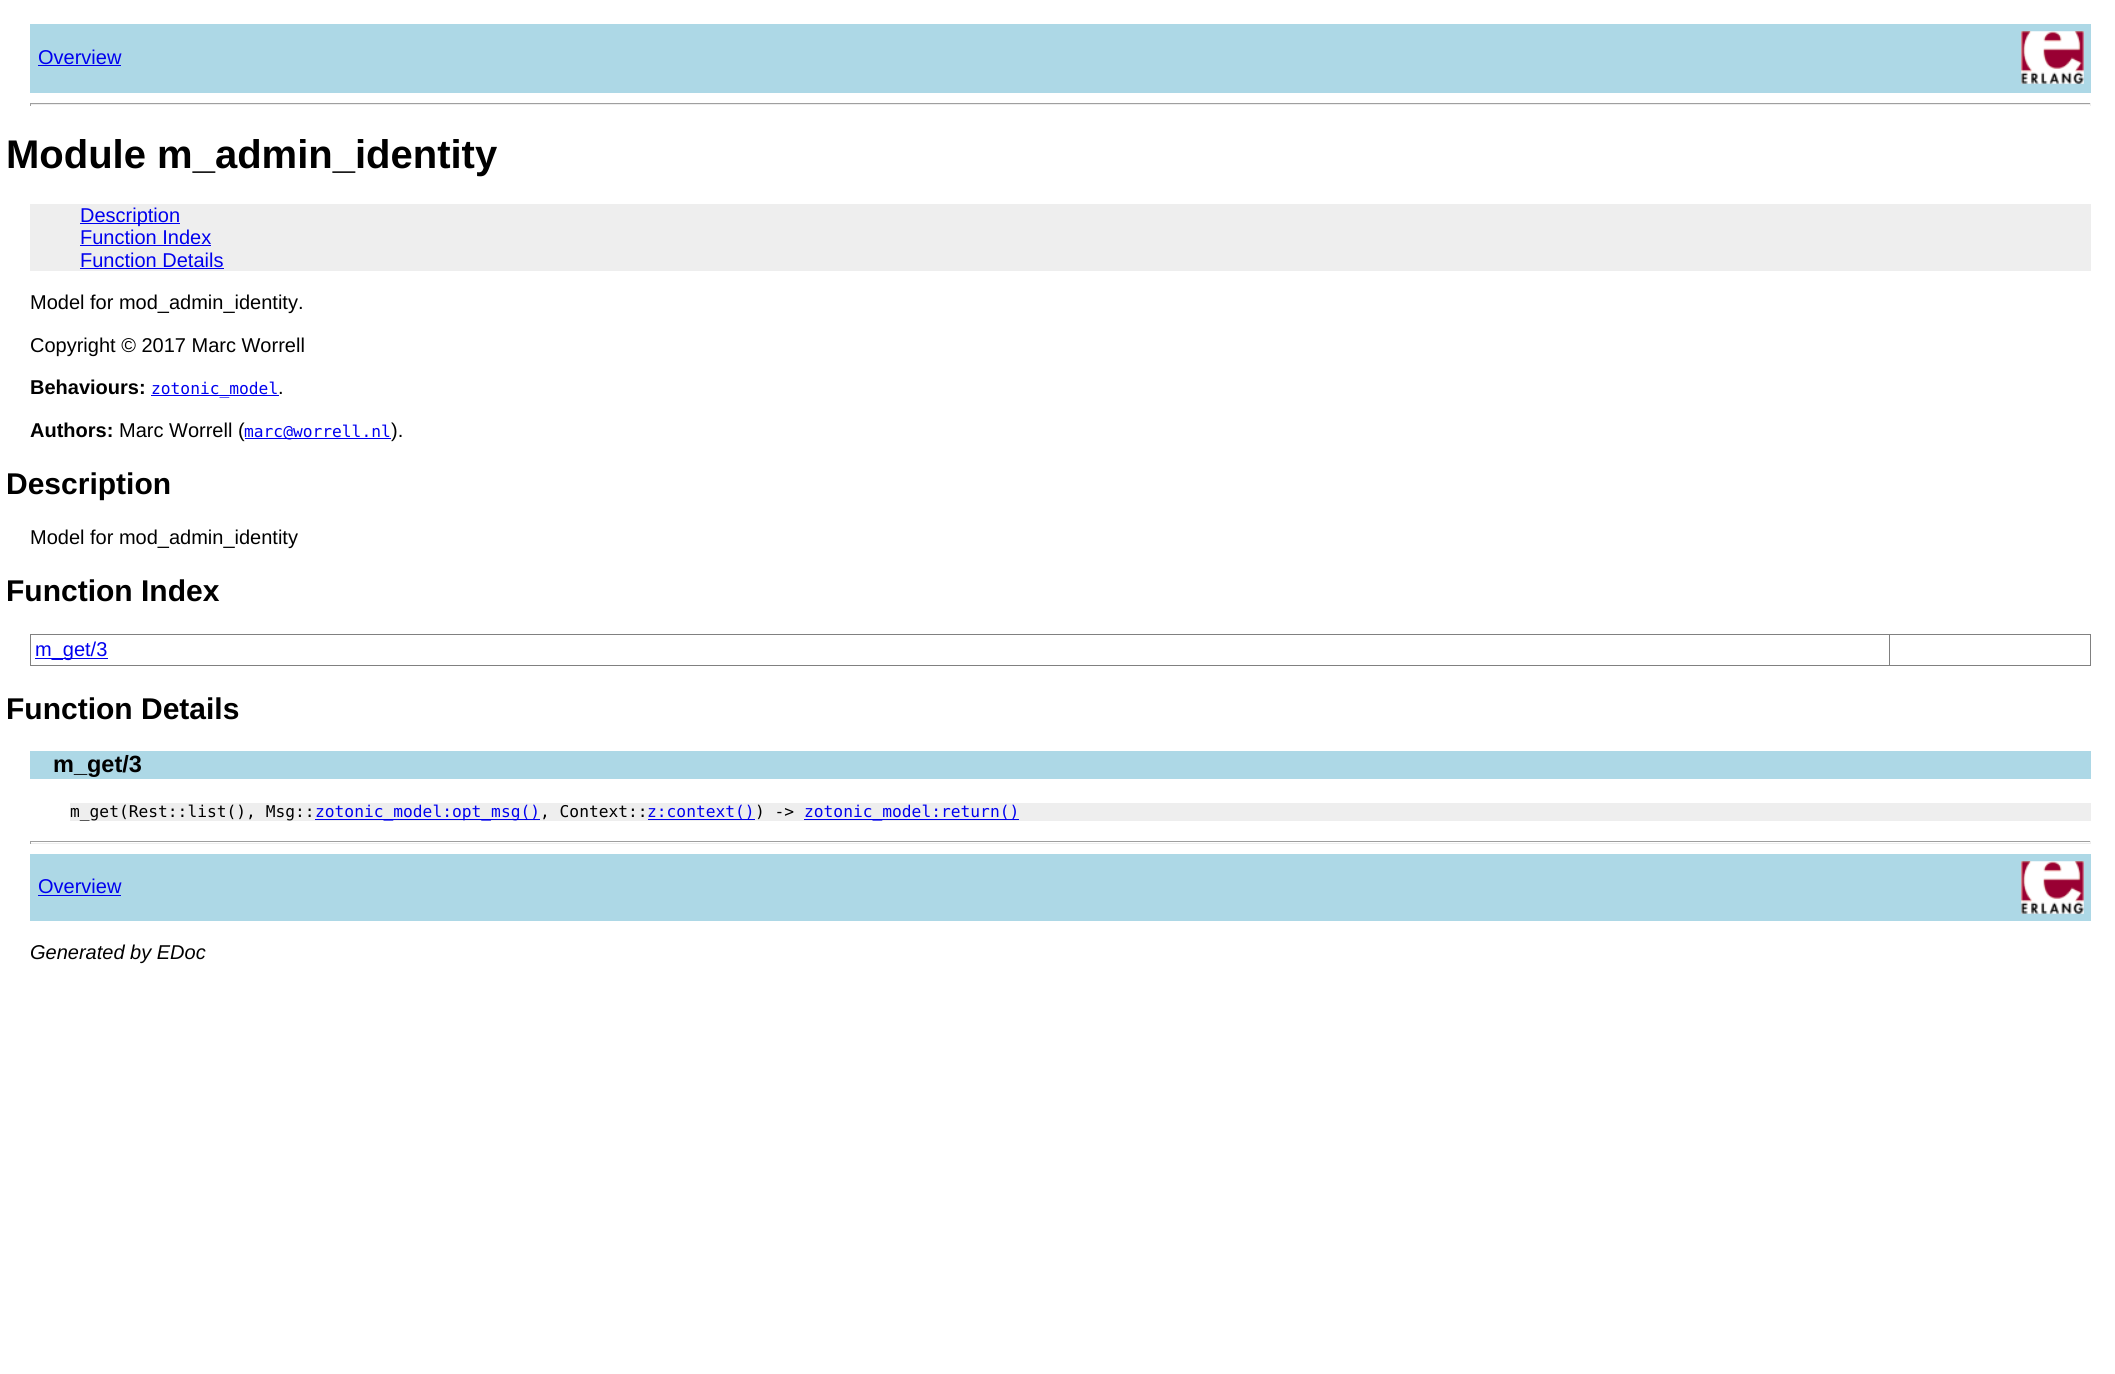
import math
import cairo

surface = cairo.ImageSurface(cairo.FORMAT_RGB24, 2115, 1374)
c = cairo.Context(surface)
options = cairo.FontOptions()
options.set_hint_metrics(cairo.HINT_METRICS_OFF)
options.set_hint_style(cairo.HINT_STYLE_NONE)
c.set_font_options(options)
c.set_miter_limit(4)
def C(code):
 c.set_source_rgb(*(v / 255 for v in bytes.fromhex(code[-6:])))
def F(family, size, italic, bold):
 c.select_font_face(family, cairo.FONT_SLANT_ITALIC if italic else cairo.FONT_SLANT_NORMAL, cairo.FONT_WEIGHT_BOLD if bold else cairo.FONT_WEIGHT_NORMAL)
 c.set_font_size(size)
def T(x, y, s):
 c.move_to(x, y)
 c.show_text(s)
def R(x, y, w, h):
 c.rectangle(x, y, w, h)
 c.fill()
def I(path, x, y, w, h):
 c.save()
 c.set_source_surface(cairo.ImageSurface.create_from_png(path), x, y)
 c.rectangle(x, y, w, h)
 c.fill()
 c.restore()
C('ffffff')
c.paint()
C('add8e6')
R(30,24,2061,69)
F('Liberation Sans',20,0,0)
C('0000ee')
T(38,64,'Overview')
R(38,65,83,1)
I('1.png',2021,31,63,53)
C('9f9f9f')
R(30,103,2061,1)
C('eeeeee')
R(2090,103,1,3)
R(30,104,2061,1)
C('9f9f9f')
R(30,103,1,3)
F('Liberation Sans',40,0,1)
C('000000')
T(6,168,'Module m_admin_identity')
C('eeeeee')
R(30,204,2061,67)
C('0000ee')
R(80,223,100,1)
F('Liberation Sans',20,0,0)
T(80,222,'Description')
T(80,244,'Function Index')
R(80,245,131,1)
T(80,267,'Function Details')
R(80,268,144,1)
C('000000')
T(30,309,'Model for mod_admin_identity.')
T(30,352,'Copyright © 2017 Marc Worrell')
F('Liberation Sans',20,0,1)
T(30,394,'Behaviours:')
C('0000ee')
R(151,395,128,1)
F('DejaVu Sans Mono',16.25,0,0)
T(151,394,'zotonic_model')
F('Liberation Sans',20,0,0)
C('000000')
T(278,394,'.')
F('Liberation Sans',20,0,1)
T(30,437,'Authors:')
F('Liberation Sans',20,0,0)
T(119,437,'Marc Worrell (')
C('0000ee')
R(245,438,146,1)
F('DejaVu Sans Mono',16.25,0,0)
T(244,437,'marc@worrell.nl')
F('Liberation Sans',20,0,0)
C('000000')
T(391,437,').')
F('Liberation Sans',30,0,1)
T(6,494,'Description')
F('Liberation Sans',20,0,0)
T(30,544,'Model for mod_admin_identity')
F('Liberation Sans',30,0,1)
T(6,601,'Function Index')
C('808080')
R(30,634,2061,1)
R(2090,634,1,32)
R(30,665,2061,1)
R(30,634,1,32)
C('0000ee')
R(35,658,73,1)
F('Liberation Sans',20,0,0)
T(35,656,'m_get/3')
C('808080')
R(1889,634,1,32)
F('Liberation Sans',30,0,1)
C('000000')
T(6,719,'Function Details')
C('add8e6')
R(30,751,2061,28)
F('Liberation Sans',23.5,0,1)
C('000000')
T(53,772,'m_get/3')
C('eeeeee')
R(70,803,2021,18)
F('DejaVu Sans Mono',16.25,0,0)
C('000000')
T(70,817,'m_get(Rest::list(), Msg::')
C('0000ee')
R(315,819,225,1)
T(315,817,'zotonic_model:opt_msg()')
C('000000')
T(540,817,', Context::')
C('0000ee')
R(648,819,107,1)
T(647,817,'z:context()')
C('000000')
T(755,817,') ->')
C('0000ee')
R(804,819,215,1)
T(804,817,'zotonic_model:return()')
C('9f9f9f')
R(30,841,2061,1)
C('eeeeee')
R(2090,841,1,3)
R(30,843,2061,1)
C('9f9f9f')
R(30,841,1,3)
C('add8e6')
R(30,854,2061,67)
F('Liberation Sans',20,0,0)
C('0000ee')
T(38,893,'Overview')
R(38,895,83,1)
I('1.png',2021,861,63,53)
F('Liberation Sans',20,1,0)
C('000000')
T(30,959,'Generated by EDoc')
surface.write_to_png('o.png')
